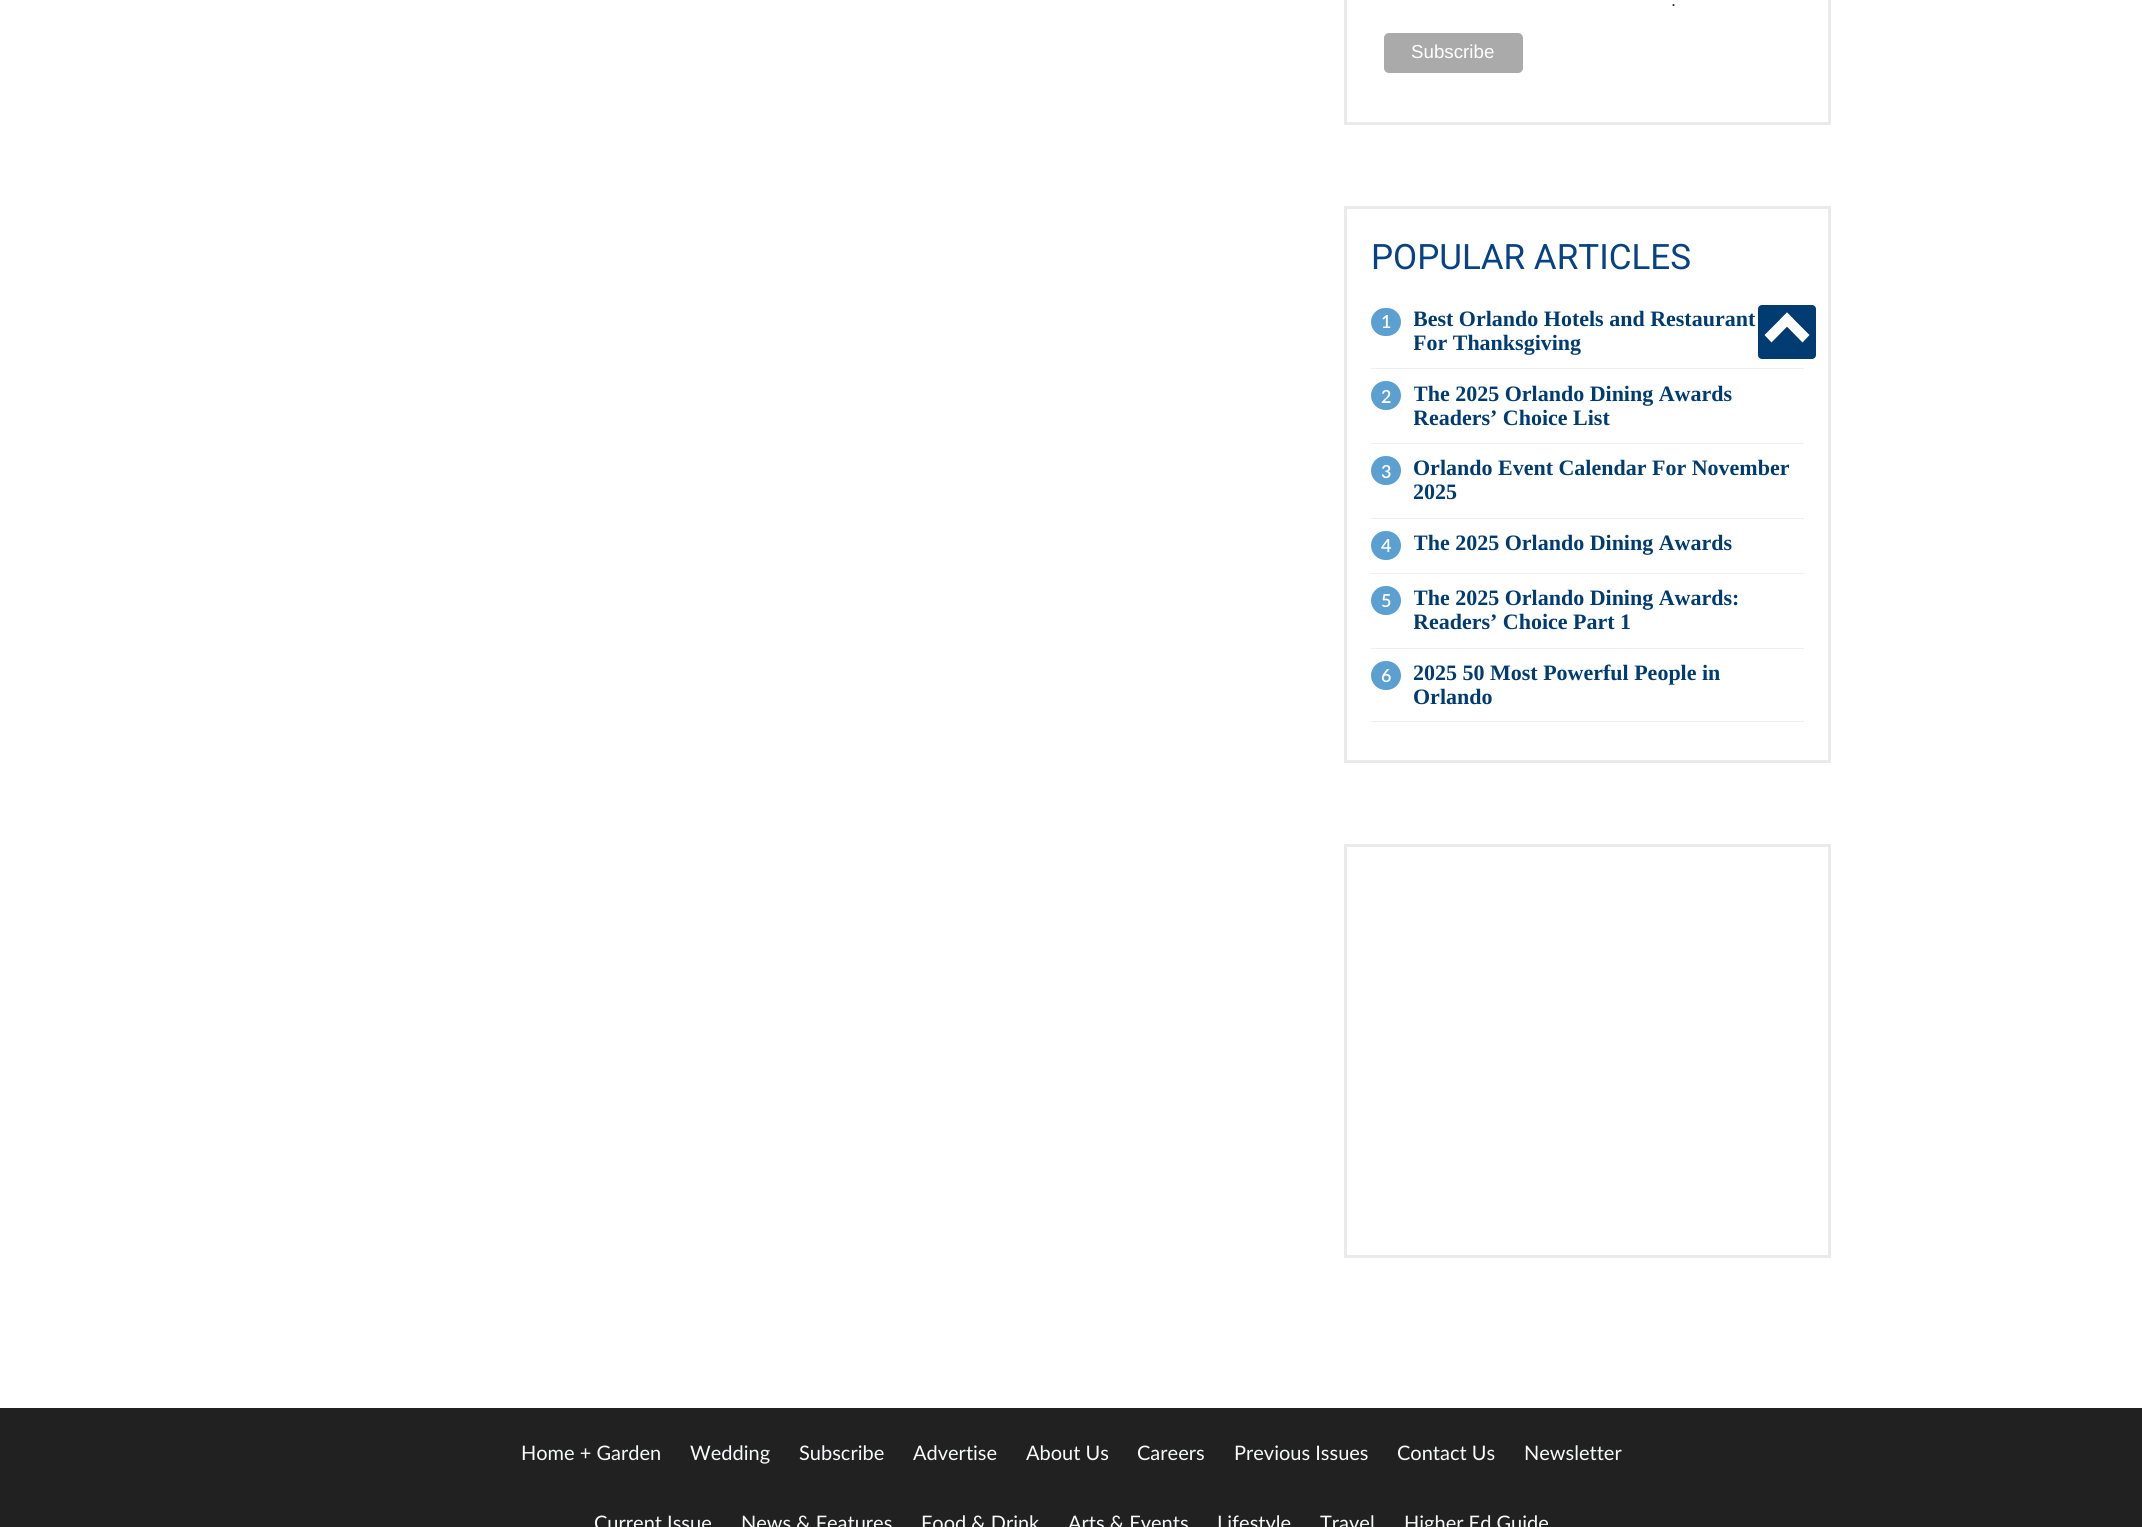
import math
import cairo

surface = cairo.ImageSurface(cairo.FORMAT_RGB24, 2142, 1527)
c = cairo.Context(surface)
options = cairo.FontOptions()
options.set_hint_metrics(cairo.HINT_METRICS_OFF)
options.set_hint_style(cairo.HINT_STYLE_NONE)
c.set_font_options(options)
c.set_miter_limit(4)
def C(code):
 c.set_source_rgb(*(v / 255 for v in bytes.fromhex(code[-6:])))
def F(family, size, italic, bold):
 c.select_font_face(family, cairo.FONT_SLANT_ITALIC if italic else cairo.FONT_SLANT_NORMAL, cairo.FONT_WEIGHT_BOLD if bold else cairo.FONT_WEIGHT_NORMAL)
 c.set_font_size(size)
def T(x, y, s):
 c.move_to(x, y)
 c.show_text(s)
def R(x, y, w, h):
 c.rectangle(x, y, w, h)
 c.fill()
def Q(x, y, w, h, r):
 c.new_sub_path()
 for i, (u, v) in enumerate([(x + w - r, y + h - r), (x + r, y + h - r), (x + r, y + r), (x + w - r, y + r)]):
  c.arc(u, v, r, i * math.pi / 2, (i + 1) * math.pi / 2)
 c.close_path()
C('ffffff')
c.paint()
c.rectangle(1345.5,-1.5,484,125)
C('eaeaea')
c.set_line_width(3)
c.stroke()
F('Liberation Sans',18,0,0)
C('2b2b2b')
T(1671,6,'.')
C('aaaaaa')
Q(1384,33,139,40,5)
c.fill()
F('Liberation Sans',18.75,0,0)
C('ffffff')
T(1411,58,'Subscribe')
c.rectangle(1345.5,207.5,484,554)
C('eaeaea')
c.stroke()
C('003b72')
Q(1758,305,58,54,4)
c.fill()
C('ffffff')
c.new_path()
c.move_to(1764.5,335)
c.line_to(1787,312.5)
c.line_to(1794,319.5)
c.line_to(1771.5,342.5)
c.close_path()
c.fill()
c.new_path()
c.move_to(1780,319.5)
c.line_to(1787,312.5)
c.line_to(1809.5,335)
c.line_to(1802.5,342.5)
c.close_path()
c.fill()
F('Roboto',35,0,0)
C('064285')
T(1371,269,'POPULAR ARTICLES')
C('efefef')
R(1371,368,433,1)
C('5ca0d1')
Q(1371,308,30,28,14)
c.fill()
F('Lato SemiBold',18,0,0)
C('ffffff')
T(1381,328,'1')
c.save()
c.rectangle(1414,308,390,47)
c.clip()
F('Liberation Serif',22,0,1)
C('003b72')
T(1413,326,'Best Orlando Hotels and Restaurant')
T(1413,350,'For Thanksgiving')
c.restore()
C('efefef')
R(1371,443,433,1)
C('5ca0d1')
Q(1371,381,30,29,14.5)
c.fill()
C('ffffff')
T(1381,403,'2')
c.save()
c.rectangle(1414,381,390,49)
c.clip()
F('Liberation Serif',22,0,1)
C('003b72')
T(1413,401,'The 2025 Orlando Dining Awards')
T(1413,425,'Readers’ Choice List')
c.restore()
C('efefef')
R(1371,518,433,1)
C('5ca0d1')
Q(1371,456,30,29,14.5)
c.fill()
C('ffffff')
T(1381,478,'3')
F('Liberation Serif',22,0,1)
C('003b72')
T(1413,475,'Orlando Event Calendar For November')
T(1413,499,'2025')
C('efefef')
R(1371,573,433,1)
C('5ca0d1')
Q(1371,531,30,29,14.5)
c.fill()
F('Lato SemiBold',18,0,0)
C('ffffff')
T(1381,552,'4')
c.save()
c.rectangle(1414,531,319,24)
c.clip()
F('Liberation Serif',22,0,1)
C('003b72')
T(1413,550,'The 2025 Orlando Dining Awards')
c.restore()
C('efefef')
R(1371,648,433,1)
C('5ca0d1')
Q(1371,586,30,29,14.5)
c.fill()
C('ffffff')
T(1381,607,'5')
c.save()
c.rectangle(1414,586,390,49)
c.clip()
F('Liberation Serif',22,0,1)
C('003b72')
T(1413,605,'The 2025 Orlando Dining Awards:')
T(1413,629,'Readers’ Choice Part 1')
c.restore()
C('efefef')
R(1371,721,433,1)
C('5ca0d1')
Q(1371,661,30,29,14.5)
c.fill()
C('ffffff')
T(1381,682,'6')
F('Liberation Serif',22,0,1)
C('003b72')
T(1413,680,'2025 50 Most Powerful People in')
T(1413,704,'Orlando')
c.rectangle(1345.5,845.5,484,411)
C('eaeaea')
c.stroke()
C('212121')
R(0,1408,2142,119)
F('Lato',20,0,0)
C('f8f9fa')
T(521,1460,'Home + Garden')
T(690,1460,'Wedding')
T(799,1460,'Subscribe')
T(913,1460,'Advertise')
T(1026,1460,'About Us')
T(1137,1460,'Careers')
T(1234,1460,'Previous Issues')
T(1397,1460,'Contact Us')
T(1524,1460,'Newsletter')
T(594,1530,'Current Issue')
T(741,1530,'News & Features')
T(921,1530,'Food & Drink')
T(1068,1530,'Arts & Events')
T(1217,1530,'Lifestyle')
T(1320,1530,'Travel')
T(1404,1530,'Higher Ed Guide')
surface.write_to_png('o.png')
